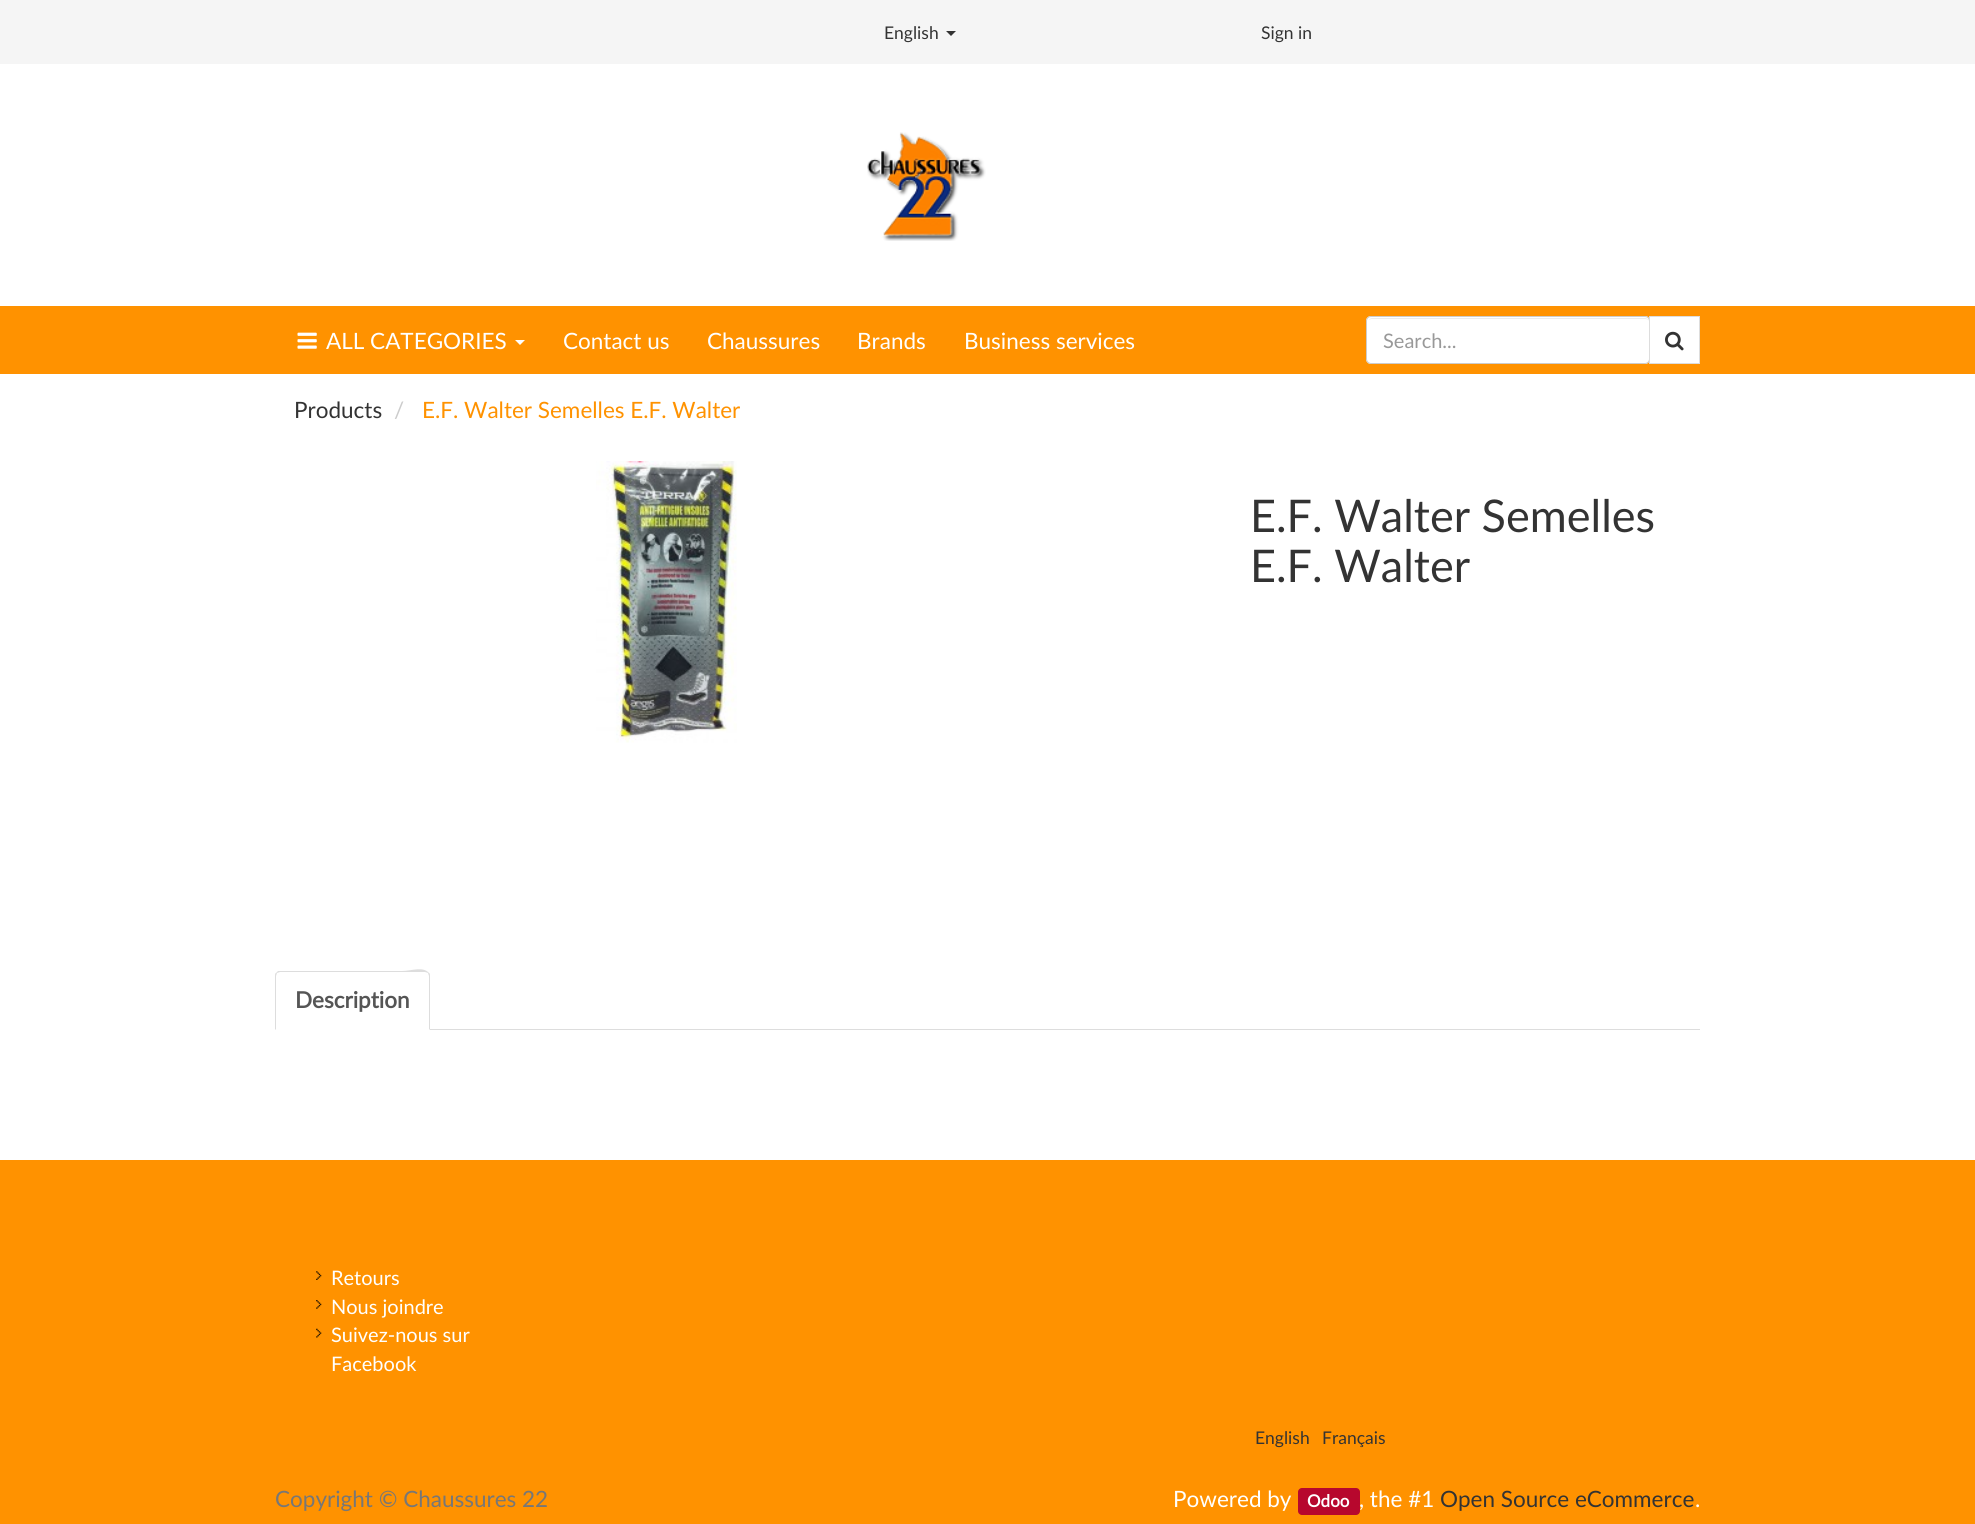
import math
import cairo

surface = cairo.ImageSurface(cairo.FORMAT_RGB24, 1975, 1524)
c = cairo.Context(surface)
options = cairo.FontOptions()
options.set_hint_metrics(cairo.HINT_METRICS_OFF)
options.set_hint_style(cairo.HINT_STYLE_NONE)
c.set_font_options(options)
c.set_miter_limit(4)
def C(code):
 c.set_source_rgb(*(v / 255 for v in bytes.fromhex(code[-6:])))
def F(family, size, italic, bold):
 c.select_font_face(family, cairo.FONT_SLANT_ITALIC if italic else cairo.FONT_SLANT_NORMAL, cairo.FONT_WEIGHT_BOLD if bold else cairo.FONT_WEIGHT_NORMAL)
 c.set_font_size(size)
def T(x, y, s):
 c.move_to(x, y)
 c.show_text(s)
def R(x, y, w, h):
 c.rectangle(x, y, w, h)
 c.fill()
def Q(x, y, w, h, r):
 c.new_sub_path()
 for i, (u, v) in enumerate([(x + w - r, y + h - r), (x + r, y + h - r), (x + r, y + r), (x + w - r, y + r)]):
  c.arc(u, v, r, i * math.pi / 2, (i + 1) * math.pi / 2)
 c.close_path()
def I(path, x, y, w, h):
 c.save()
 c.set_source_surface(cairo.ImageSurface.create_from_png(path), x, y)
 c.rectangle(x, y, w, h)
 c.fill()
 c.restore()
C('ffffff')
c.paint()
C('f5f5f5')
R(0,0,1975,64)
F('Lato',17.5,0,0)
C('333333')
T(884,39,'English')
c.new_path()
c.move_to(946,31)
c.line_to(956,31)
c.line_to(951,36)
c.close_path()
c.fill()
T(1261,39,'Sign in')
I('1.png',867,132,119,109)
C('ff9200')
R(0,306,1975,68)
I('2.png',297,332,20,17)
F('Lato',22.5,0,0)
C('ffffff')
T(326,349,'ALL CATEGORIES')
c.new_path()
c.move_to(515,340)
c.line_to(525,340)
c.line_to(520,345)
c.close_path()
c.fill()
T(563,349,'Contact us')
T(707,349,'Chaussures')
T(857,349,'Brands')
T(964,349,'Business services')
Q(1366,316,284,48,5)
c.fill()
C('ececec')
c.new_path()
c.move_to(1371,319)
c.line_to(1645,319)
c.curve_to(1647,319,1649,320,1649,322)
c.curve_to(1649,320,1647,318,1645,318)
c.line_to(1372,318)
c.curve_to(1371,318,1369,319,1369,320)
c.close_path()
c.fill()
Q(1366.5,316.5,283,47,4.5)
C('cccccc')
c.set_line_width(1)
c.stroke()
F('Lato',20,0,0)
C('999999')
T(1383,348,'Search...')
C('ffffff')
c.rectangle(1649.5,316.5,50,47)
c.fill_preserve()
C('dddddd')
c.stroke()
I('3.png',1665,331,19,20)
F('Lato',22.5,0,0)
C('333333')
T(294,418,'Products')
C('cccccc')
T(394,418,'/')
C('ff9200')
T(422,418,'E.F. Walter Semelles E.F. Walter')
I('4.png',596,461,141,282)
F('Lato',45,0,0)
C('333333')
T(1250,532,'E.F. Walter Semelles')
T(1250,582,'E.F. Walter')
C('dddddd')
R(430,1029,1270,1)
c.new_path()
c.move_to(280,972)
c.line_to(277,973)
c.line_to(276,973)
c.line_to(278,971)
c.line_to(402,971)
c.curve_to(411,971,423,966,429,973)
c.line_to(428,973)
c.line_to(425,972)
c.close_path()
c.fill()
c.new_path()
c.move_to(430,1030)
c.line_to(430,976)
c.curve_to(430,975,430,973,429,973)
c.line_to(428,973)
c.line_to(429,976)
c.line_to(429,1029)
c.close_path()
c.fill()
c.new_path()
c.move_to(275,1030)
c.line_to(276,1029)
c.line_to(276,976)
c.line_to(277,973)
c.line_to(276,973)
c.curve_to(275,973,275,975,275,976)
c.close_path()
c.fill()
F('Lato',22.5,0,1)
C('555555')
T(295,1008,'Description')
C('ff9200')
R(0,1160,1975,364)
I('5.png',316,1271,6,9)
F('Lato',20,0,0)
C('ffffff')
T(331,1285,'Retours')
I('6.png',316,1300,6,9)
T(331,1314,'Nous joindre')
I('7.png',316,1328,6,10)
T(331,1342,'Suivez-nous sur')
T(331,1371,'Facebook')
F('Lato',17.5,0,0)
C('333333')
T(1255,1444,'English')
T(1322,1444,'Français')
F('Lato',22.5,0,0)
C('777777')
T(275,1507,'Copyright © Chaussures 22')
C('ffffff')
T(1173,1507,'Powered by')
C('b7072d')
Q(1298,1488,62,27,4)
c.fill()
F('Lato',17,0,1)
C('ffffff')
T(1307,1507,'Odoo')
F('Lato',22.5,0,0)
T(1359,1507,', the #1')
C('333333')
T(1440,1507,'Open Source eCommerce')
C('ffffff')
T(1695,1507,'.')
surface.write_to_png('o.png')
